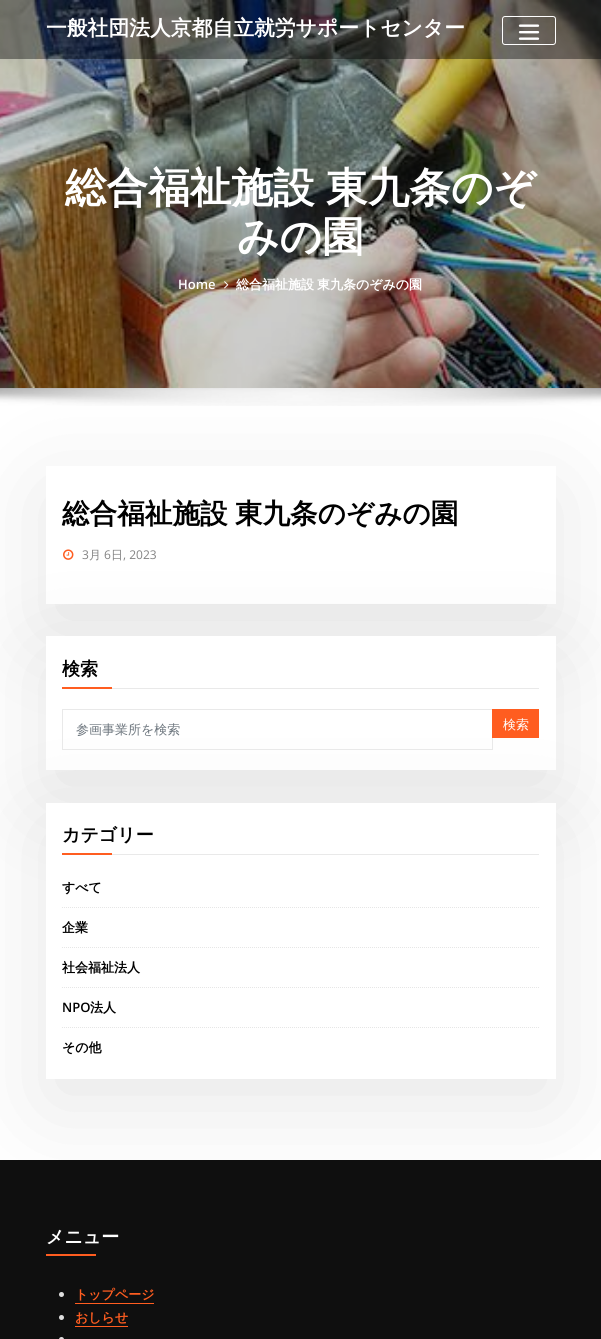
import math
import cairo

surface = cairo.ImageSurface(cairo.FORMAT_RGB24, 601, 1339)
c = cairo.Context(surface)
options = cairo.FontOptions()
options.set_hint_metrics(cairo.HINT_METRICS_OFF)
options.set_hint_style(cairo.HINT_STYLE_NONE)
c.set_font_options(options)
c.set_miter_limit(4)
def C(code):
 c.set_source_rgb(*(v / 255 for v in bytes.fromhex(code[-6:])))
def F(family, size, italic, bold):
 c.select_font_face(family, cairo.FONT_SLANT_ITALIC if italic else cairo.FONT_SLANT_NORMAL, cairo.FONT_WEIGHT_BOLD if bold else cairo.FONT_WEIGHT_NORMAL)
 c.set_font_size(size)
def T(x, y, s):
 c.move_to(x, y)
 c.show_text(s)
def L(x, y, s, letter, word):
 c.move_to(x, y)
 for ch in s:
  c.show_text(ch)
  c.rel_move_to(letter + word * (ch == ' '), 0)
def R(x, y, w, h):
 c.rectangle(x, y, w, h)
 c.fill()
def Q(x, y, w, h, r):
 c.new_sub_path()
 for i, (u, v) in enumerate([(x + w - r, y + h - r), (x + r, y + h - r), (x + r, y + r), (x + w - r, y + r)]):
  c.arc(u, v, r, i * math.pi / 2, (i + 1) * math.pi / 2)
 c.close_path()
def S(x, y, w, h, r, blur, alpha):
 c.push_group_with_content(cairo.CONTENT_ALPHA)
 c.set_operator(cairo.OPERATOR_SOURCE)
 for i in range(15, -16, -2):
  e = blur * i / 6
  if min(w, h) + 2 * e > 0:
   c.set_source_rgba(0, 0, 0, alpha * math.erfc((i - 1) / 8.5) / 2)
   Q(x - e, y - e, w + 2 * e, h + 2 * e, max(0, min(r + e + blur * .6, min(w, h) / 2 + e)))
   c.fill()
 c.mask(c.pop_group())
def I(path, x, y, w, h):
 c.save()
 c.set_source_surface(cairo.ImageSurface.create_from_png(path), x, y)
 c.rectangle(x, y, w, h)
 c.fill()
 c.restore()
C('ffffff')
c.paint()
I('2.png',0,0,601,388)
c.set_source_rgba(0,0,0,0.4)
R(0,0,601,59)
F('WenQuanYi Zen Hei',20.8,0,1)
C('ffffff')
T(46,35,'一般社団法人京都自立就労サポートセンター')
Q(502.5,16.5,53,28,2.5)
c.set_line_width(1)
c.stroke()
I('1.png',518,24,22,16)
F('WenQuanYi Zen Hei',41.6,0,1)
L(65,202,'総合福祉施設 東九条のぞ',0,-1)
T(237,251,'みの園')
F('Open Sans SemiBold',13,0,0)
T(178,289,'Home')
I('3.png',224,281,5,8)
F('WenQuanYi Zen Hei',13,0,1)
L(236,289,'総合福祉施設 東九条のぞみの園',0,-1)
c.save()
c.set_fill_rule(cairo.FILL_RULE_EVEN_ODD)
c.new_path()
c.move_to(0,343)
c.line_to(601,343)
c.line_to(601,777)
c.line_to(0,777)
c.close_path()
c.move_to(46,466)
c.line_to(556,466)
c.line_to(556,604)
c.line_to(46,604)
c.close_path()
c.clip()
C('000000')
S(46,491,510,138,0,49,.1)
c.restore()
I('4.png',0,388,601,18)
F('WenQuanYi Zen Hei',27.6,0,1)
C('000000')
L(62,523,'総合福祉施設 東九条のぞみの園',0,-1)
I('5.png',63,549,11,11)
F('Open Sans',12,0,0)
C('838383')
T(82,559,'3')
F('WenQuanYi Zen Hei Medium',12,0,0)
T(89,559,'月')
F('Open Sans',12,0,0)
T(104,559,'6')
F('WenQuanYi Zen Hei Medium',12,0,0)
T(111,559,'日')
F('Open Sans',12,0,0)
T(123,559,', 2023')
C('000000')
S(46,661,510,134,0,49,.1)
C('ffffff')
R(46,636,510,134)
C('000000')
S(46,828,510,276,0,49,.1)
C('e9e9e9')
R(112,688,427,1)
F('WenQuanYi Zen Hei',18,0,1)
C('000000')
T(62,675,'検索')
C('ff5d20')
R(62,687,50,2)
c.rectangle(62.5,709.5,430,40)
C('e9e9e9')
c.stroke()
F('WenQuanYi Zen Hei Medium',13,0,0)
C('6c757d')
T(76,734,'参画事業所を検索')
C('ff5d20')
R(492,709,47,29)
C('ffffff')
T(503,729,'検索')
R(46,803,510,276)
C('e9e9e9')
R(112,854,427,1)
F('WenQuanYi Zen Hei',18,0,1)
C('000000')
T(62,841,'カテゴリー')
C('ff5d20')
R(62,853,50,2)
c.new_path()
c.move_to(62,907.5)
c.line_to(539,907.5)
C('e6e6e6')
c.set_dash([1,1])
c.stroke()
F('WenQuanYi Zen Hei',13,0,1)
C('000000')
T(62,892,'すべて')
c.new_path()
c.move_to(62,947.5)
c.line_to(539,947.5)
C('e6e6e6')
c.stroke()
C('000000')
T(62,932,'企業')
c.new_path()
c.move_to(62,987.5)
c.line_to(539,987.5)
C('e6e6e6')
c.stroke()
C('000000')
T(62,972,'社会福祉法人')
c.new_path()
c.move_to(62,1027.5)
c.line_to(539,1027.5)
C('e6e6e6')
c.stroke()
F('Open Sans SemiBold',13,0,0)
C('000000')
T(62,1012,'NPO')
F('WenQuanYi Zen Hei',13,0,1)
T(90,1012,'法人')
T(62,1052,'その他')
C('0f0f0f')
R(0,1160,601,179)
F('WenQuanYi Zen Hei',18,0,1)
C('ffffff')
T(46,1243,'メニュー')
C('ff5d20')
R(46,1254,50,2)
C('dddddd')
c.new_path()
c.arc(61.5,1294.5,2.5,0,2 * math.pi)
c.fill()
F('WenQuanYi Zen Hei',13,0,1)
C('ff5d20')
T(75,1299,'トップページ')
R(75,1303,79,1)
C('dddddd')
c.new_path()
c.arc(61.5,1317.5,2.5,0,2 * math.pi)
c.fill()
C('ff5d20')
T(75,1322,'おしらせ')
R(75,1326,53,1)
C('dddddd')
c.new_path()
c.arc(61.5,1339.5,2.5,0,2 * math.pi)
c.fill()
surface.write_to_png('o.png')
